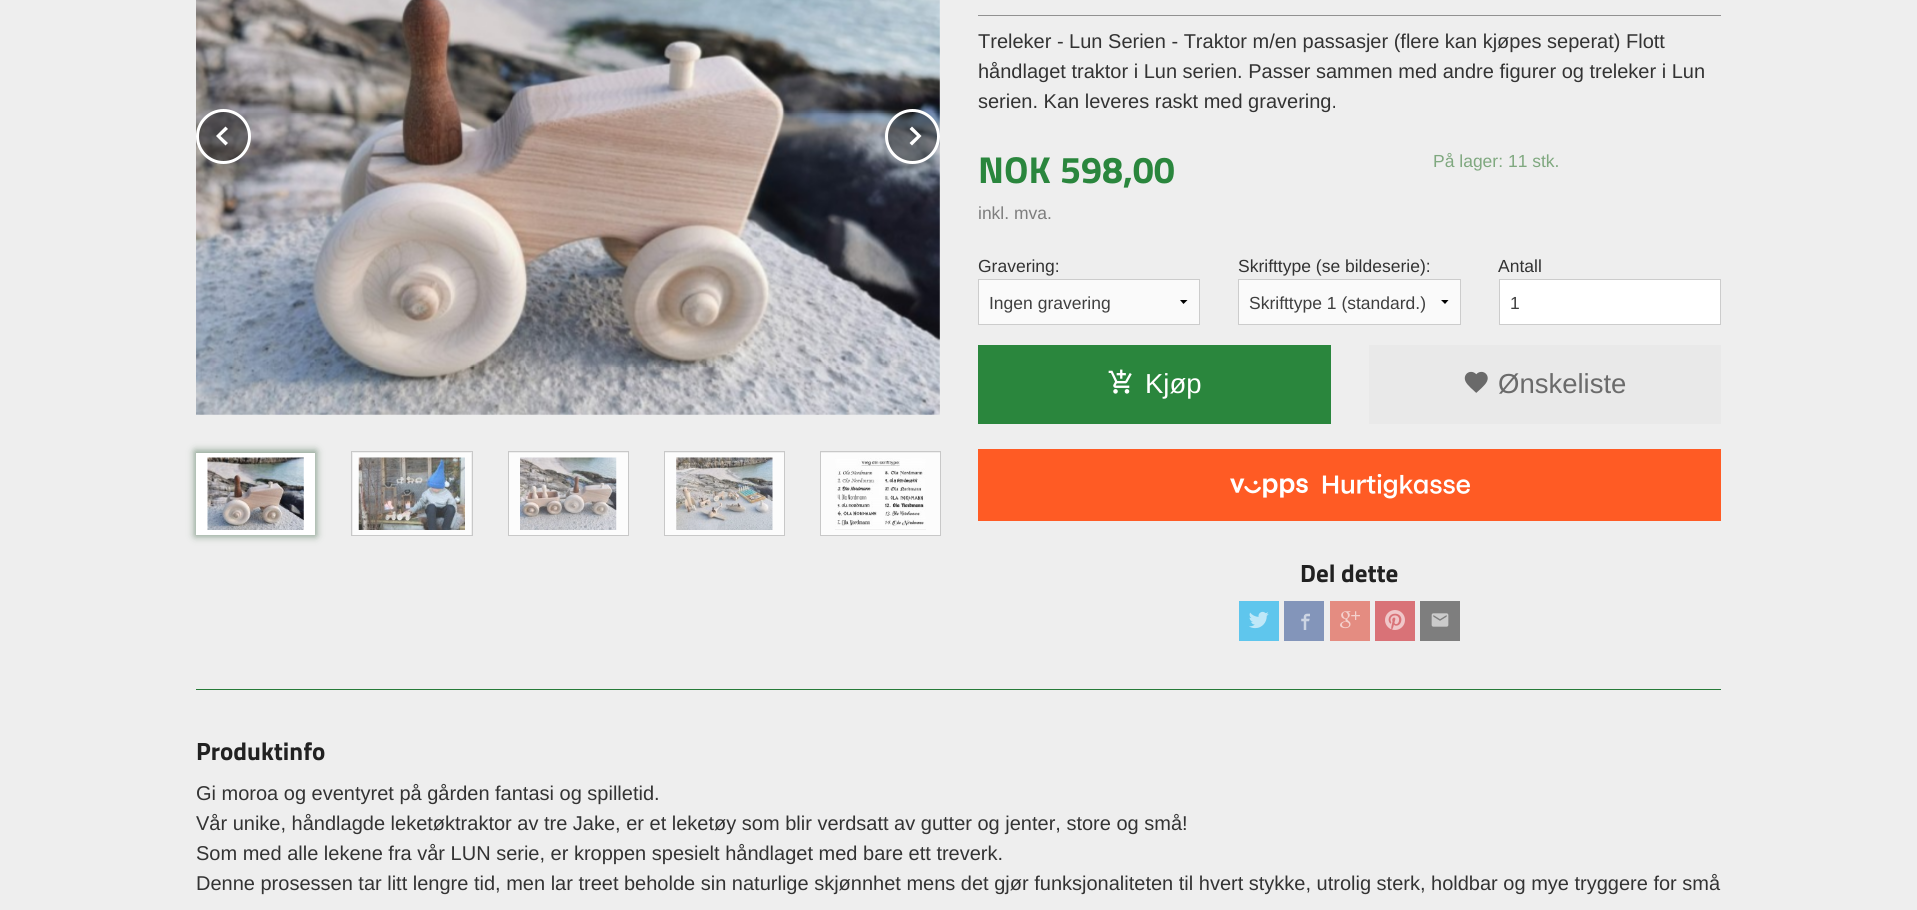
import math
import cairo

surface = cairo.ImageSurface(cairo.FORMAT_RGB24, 1917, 910)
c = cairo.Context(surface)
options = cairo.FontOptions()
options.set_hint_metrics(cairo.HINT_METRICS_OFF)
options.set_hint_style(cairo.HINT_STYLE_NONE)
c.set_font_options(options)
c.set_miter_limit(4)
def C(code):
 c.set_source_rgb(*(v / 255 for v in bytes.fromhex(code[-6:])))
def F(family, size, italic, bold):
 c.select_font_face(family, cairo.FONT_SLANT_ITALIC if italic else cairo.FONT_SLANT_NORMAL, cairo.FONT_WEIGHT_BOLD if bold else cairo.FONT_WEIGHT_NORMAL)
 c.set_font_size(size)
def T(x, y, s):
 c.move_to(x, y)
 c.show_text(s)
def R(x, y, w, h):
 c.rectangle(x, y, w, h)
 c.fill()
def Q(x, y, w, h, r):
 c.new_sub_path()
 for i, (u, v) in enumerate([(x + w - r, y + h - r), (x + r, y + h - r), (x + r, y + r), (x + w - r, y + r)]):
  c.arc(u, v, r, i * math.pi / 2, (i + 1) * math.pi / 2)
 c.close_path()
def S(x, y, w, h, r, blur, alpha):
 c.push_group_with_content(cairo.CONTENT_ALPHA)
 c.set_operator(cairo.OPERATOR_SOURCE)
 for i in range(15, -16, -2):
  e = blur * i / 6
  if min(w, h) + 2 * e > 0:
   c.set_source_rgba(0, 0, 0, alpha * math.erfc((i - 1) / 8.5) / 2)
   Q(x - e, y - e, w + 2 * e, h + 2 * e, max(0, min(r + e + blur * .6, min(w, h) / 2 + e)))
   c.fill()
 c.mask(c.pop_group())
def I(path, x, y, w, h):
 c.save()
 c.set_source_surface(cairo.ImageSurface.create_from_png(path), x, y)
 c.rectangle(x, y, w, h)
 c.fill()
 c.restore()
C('eeeeee')
c.paint()
I('1.png',196,0,744,415)
c.set_source_rgba(0,0,0,0.4)
c.arc(223.5,136.5,26,0,2 * math.pi)
c.fill_preserve()
C('ffffff')
c.set_line_width(3)
c.stroke()
c.new_path()
c.move_to(228,129)
c.line_to(225.5,126.5)
c.line_to(216,136)
c.line_to(225.5,145.5)
c.line_to(228,143)
c.line_to(220.5,136)
c.close_path()
c.fill()
c.set_source_rgba(0,0,0,0.4)
c.arc(912.5,136.5,26,0,2 * math.pi)
c.fill_preserve()
C('ffffff')
c.stroke()
c.new_path()
c.move_to(912,126.5)
c.line_to(909.5,129)
c.line_to(917,136)
c.line_to(909.5,143)
c.line_to(912,145.5)
c.line_to(921.5,136)
c.close_path()
c.fill()
C('174821')
S(195,451,121,85,0,4,.5)
C('ffffff')
R(196,453,119,82)
I('2.png',207,457,97,73)
c.rectangle(351.5,451.5,121,84)
C('c8c8c8')
c.set_line_width(1)
c.stroke()
C('fcfcfc')
R(353,453,118,82)
I('3.png',358,457,107,73)
c.rectangle(508.5,451.5,120,84)
C('c8c8c8')
c.stroke()
C('fcfcfc')
R(509,453,119,82)
I('4.png',520,457,97,73)
c.rectangle(664.5,451.5,120,84)
C('c8c8c8')
c.stroke()
C('fcfcfc')
R(665,453,119,82)
I('5.png',676,457,97,73)
c.rectangle(820.5,451.5,120,84)
C('c8c8c8')
c.stroke()
C('fcfcfc')
R(821,453,119,82)
I('6.png',835,458,91,72)
C('919191')
R(978,15,743,1)
F('Liberation Sans',20,0,0)
C('333333')
T(978,48,'Treleker - Lun Serien - Traktor m/en passasjer (flere kan kjøpes seperat) Flott')
T(978,78,'håndlaget traktor i Lun serien. Passer sammen med andre figurer og treleker i Lun')
T(978,108,'serien. Kan leveres raskt med gravering.')
F('Titillium Web',37.5,0,1)
C('2a863d')
T(978,183,'NOK')
T(1060,183,'598,00')
F('Liberation Sans',17.5,0,0)
C('7e7e7e')
T(978,219,'inkl. mva.')
C('7fa87f')
T(1433,167,'På lager: 11 stk.')
C('333333')
T(978,272,'Gravering:')
C('fafafa')
R(979,280,220,44)
C('000000')
c.new_path()
c.move_to(1187.5,300)
c.line_to(1183.5,304)
c.line_to(1180,300)
c.close_path()
c.fill()
c.rectangle(978.5,279.5,221,45)
C('cccccc')
c.stroke()
C('3f3f3f')
T(989,309,'Ingen gravering')
C('333333')
T(1238,272,'Skrifttype (se bildeserie):')
C('fafafa')
R(1239,280,221,44)
C('000000')
c.new_path()
c.move_to(1448.5,300)
c.line_to(1445,304)
c.line_to(1441,300)
c.close_path()
c.fill()
c.rectangle(1238.5,279.5,222,45)
C('cccccc')
c.stroke()
C('3f3f3f')
T(1249,309,'Skrifttype 1 (standard.)')
C('333333')
T(1498,272,'Antall')
C('ffffff')
c.rectangle(1499.5,279.5,221,45)
c.fill_preserve()
C('cccccc')
c.stroke()
C('3f3f3f')
T(1510,309,'1')
C('2a863d')
R(978,345,353,79)
I('7.png',1108,369,24,25)
F('Liberation Sans',27.5,0,0)
C('ffffff')
T(1145,393,'Kjøp')
C('e9e9e9')
R(1369,345,352,79)
I('8.png',1464,371,24,22)
C('6b6b6b')
T(1498,393,'Ønskeliste')
C('ff5b24')
R(978,449,743,72)
I('9.png',1230,474,240,25)
F('Titillium Web',25,0,1)
C('212121')
T(1300,582,'Del dette')
C('5fc6ed')
R(1239,601,40,40)
I('10.png',1249,611,20,18)
C('8395ba')
R(1284,601,40,40)
I('11.png',1301,613,9,17)
C('e48c81')
R(1330,601,40,40)
I('12.png',1340,611,20,18)
C('d97277')
R(1375,601,40,40)
I('13.png',1385,610,20,20)
C('7e7e7e')
R(1420,601,40,40)
I('14.png',1431,613,18,14)
C('267a38')
R(196,689,1525,1)
C('212121')
T(196,760,'Produktinfo')
F('Liberation Sans',20,0,0)
C('333333')
T(196,800,'Gi moroa og eventyret på gården fantasi og spilletid.')
T(196,830,'Vår unike, håndlagde leketøktraktor av tre Jake, er et leketøy som blir verdsatt av gutter og jenter, store og små!')
T(196,860,'Som med alle lekene fra vår LUN serie, er kroppen spesielt håndlaget med bare ett treverk.')
T(196,890,'Denne prosessen tar litt lengre tid, men lar treet beholde sin naturlige skjønnhet mens det gjør funksjonaliteten til hvert stykke, utrolig sterk, holdbar og mye tryggere for små')
surface.write_to_png('o.png')
